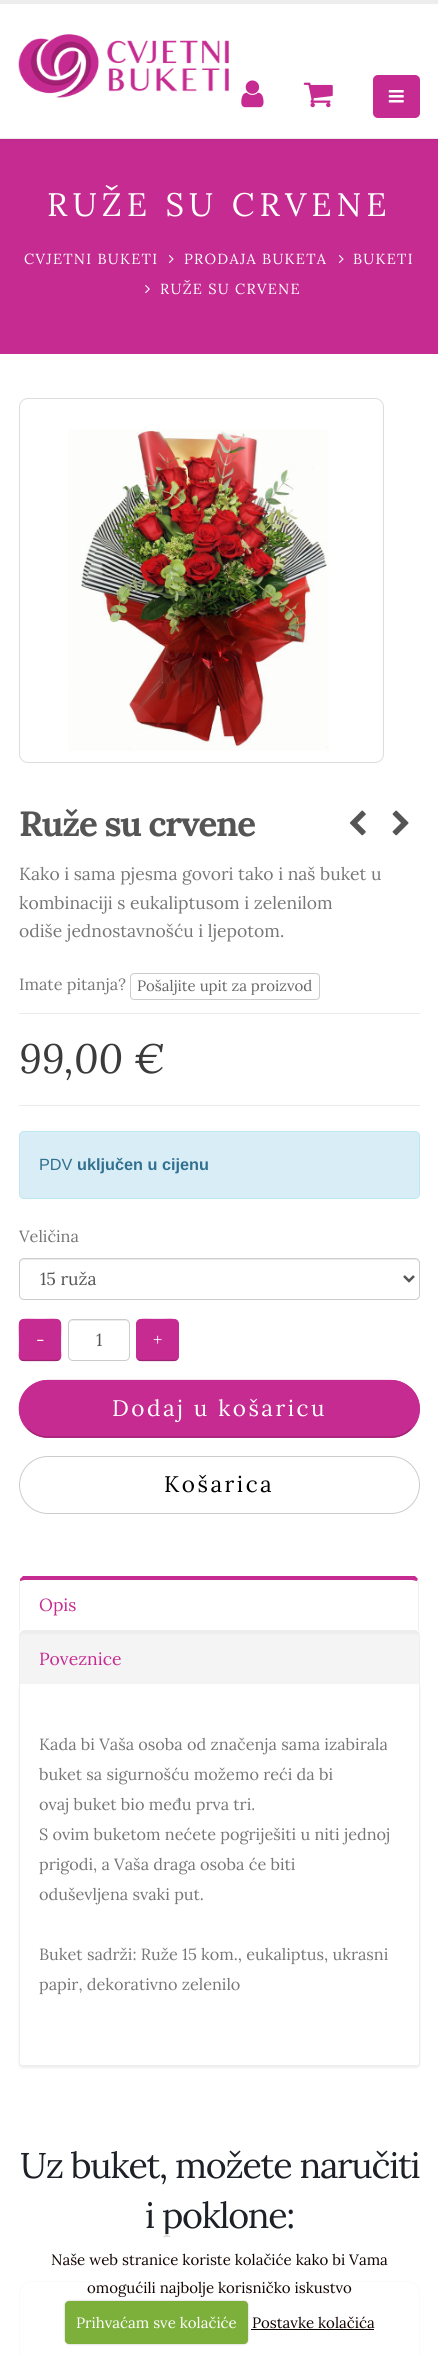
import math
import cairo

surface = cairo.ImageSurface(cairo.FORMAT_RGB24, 438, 2356)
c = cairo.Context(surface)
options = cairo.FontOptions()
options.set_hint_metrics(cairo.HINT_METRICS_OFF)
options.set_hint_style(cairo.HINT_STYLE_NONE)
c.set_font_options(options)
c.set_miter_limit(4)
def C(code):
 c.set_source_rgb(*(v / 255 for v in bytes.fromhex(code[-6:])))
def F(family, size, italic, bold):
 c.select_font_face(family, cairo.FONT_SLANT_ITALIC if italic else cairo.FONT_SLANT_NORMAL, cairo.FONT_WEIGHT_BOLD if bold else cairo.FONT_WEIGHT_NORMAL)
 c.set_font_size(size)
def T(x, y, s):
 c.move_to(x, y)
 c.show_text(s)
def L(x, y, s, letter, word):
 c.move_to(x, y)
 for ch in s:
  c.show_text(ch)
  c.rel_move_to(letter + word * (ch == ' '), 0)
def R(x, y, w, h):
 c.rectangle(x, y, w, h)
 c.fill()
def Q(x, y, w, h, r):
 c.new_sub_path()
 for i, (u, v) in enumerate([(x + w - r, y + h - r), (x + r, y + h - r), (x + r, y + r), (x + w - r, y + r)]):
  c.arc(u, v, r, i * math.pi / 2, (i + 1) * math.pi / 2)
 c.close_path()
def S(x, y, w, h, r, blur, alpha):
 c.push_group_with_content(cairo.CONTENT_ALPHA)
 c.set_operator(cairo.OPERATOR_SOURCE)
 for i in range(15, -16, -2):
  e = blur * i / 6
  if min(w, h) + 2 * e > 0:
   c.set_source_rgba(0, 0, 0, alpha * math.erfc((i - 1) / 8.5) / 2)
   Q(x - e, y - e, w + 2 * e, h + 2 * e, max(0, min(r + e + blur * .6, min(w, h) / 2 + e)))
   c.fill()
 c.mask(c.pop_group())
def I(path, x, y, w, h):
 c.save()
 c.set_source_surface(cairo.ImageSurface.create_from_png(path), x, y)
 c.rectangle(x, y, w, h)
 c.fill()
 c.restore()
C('ffffff')
c.paint()
C('c62b91')
R(0,139,438,215)
C('000000')
S(0,0,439,139,0,2,.1)
C('ffffff')
R(0,4,438,134)
C('ededed')
R(0,0,438,4)
C('e9e9e9')
R(0,138,438,1)
I('1.png',18,34,211,64)
I('2.png',241,80,23,28)
I('3.png',303,82,30,26)
C('c62b91')
Q(373,75,47,43,5)
c.fill()
I('4.png',388,90,16,13)
F('Lora',32.5,0,0)
C('ffffff')
L(47,216,'RUŽE SU CRVENE',5,0)
F('Lora',14.6,0,0)
L(24,264,'CVJETNI BUKETI',1.25,0)
I('5.png',168,255,6,9)
L(184,264,'PRODAJA BUKETA',1.25,0)
I('5.png',338,255,6,9)
L(353,264,'BUKETI',1.25,0)
I('6.png',145,285,5,9)
L(160,294,'RUŽE SU CRVENE',1.25,0)
Q(19.5,398.5,364,364,8.5)
C('dddddd')
c.set_line_width(1)
c.stroke()
I('7.png',68,429,261,322)
F('Lora',35,0,1)
C('555555')
L(19,836,'Ruže su crvene',-1.25,0)
I('8.png',349,810,17,26)
I('9.png',392,810,17,26)
C('ebebeb')
R(19,1013,401,1)
F('Lora',17.5,0,0)
C('777777')
T(19,880,'Kako i sama pjesma govori tako i naš buket u')
T(19,909,'kombinaciji s eukaliptusom i zelenilom')
T(19,937,'odiše jednostavnošću i ljepotom.')
F('Lora',16.25,0,0)
T(19,990,'Imate pitanja?')
Q(130.5,973.5,189,26,3.5)
C('cccccc')
c.stroke()
F('Lora',15,0,0)
C('666666')
T(137,991,'Pošaljite upit za proizvod')
C('ebebeb')
R(19,1105,401,1)
F('Lora',41,1,0)
C('3b3b3b')
T(19,1073,'99,00 €')
C('d9edf7')
Q(19.5,1131.5,400,67,4.5)
c.fill_preserve()
C('bce8f1')
c.stroke()
F('Liberation Sans',16.25,0,0)
C('31708f')
T(39,1170,'PDV')
F('Liberation Sans',16.25,0,1)
T(77,1170,'uključen u cijenu')
F('Lora',16.25,0,0)
C('777777')
T(19,1242,'Veličina')
C('ececec')
c.new_path()
c.move_to(24,1260)
c.line_to(415,1260)
c.curve_to(417,1260,419,1262,419,1264)
c.curve_to(419,1261,418,1259,415,1259)
c.line_to(24,1259)
c.curve_to(21,1259,20,1261,20,1264)
c.curve_to(20,1262,22,1260,24,1260)
c.close_path()
c.fill()
Q(19.5,1258.5,400,41,4.5)
C('cccccc')
c.stroke()
c.new_path()
c.move_to(404,1276)
c.line_to(409,1281)
c.line_to(414,1276)
C('555555')
c.set_line_width(2.5)
c.stroke()
F('Lora',17.5,0,0)
T(40,1285,'15 ruža')
C('c62b91')
Q(19,1319,42,42,5)
c.fill()
c.new_path()
c.move_to(59.5,1359.5)
c.curve_to(58.5,1360,57.5,1360.5,56,1360.5)
c.line_to(24,1360.5)
c.curve_to(22.5,1360.5,21.5,1360,20.5,1359.5)
C('9c2272')
c.set_line_width(1.2)
c.stroke()
c.new_path()
c.move_to(20.5,1359.5)
c.curve_to(18.5,1357,19.5,1353,19.5,1351)
c.line_to(19.5,1340)
c.curve_to(19.5,1316,16,1319.5,40,1319.5)
c.curve_to(64,1319.5,60.5,1316,60.5,1340)
c.line_to(60.5,1351)
c.curve_to(60.5,1353,61.5,1357,59.5,1359.5)
C('c62b91')
c.stroke()
C('ffffff')
T(36,1346,'-')
C('ececec')
c.new_path()
c.move_to(72,1321)
c.line_to(125,1321)
c.curve_to(127,1321,129,1323,129,1325)
c.curve_to(129,1318,121,1320,116,1320)
c.line_to(82,1320)
c.curve_to(77,1320,69,1318,69,1325)
c.curve_to(69,1323,70,1321,72,1321)
c.close_path()
c.fill()
Q(68.5,1319.5,61,41,4.5)
C('cccccc')
c.set_line_width(1)
c.stroke()
C('555555')
T(96,1346,'1')
C('c62b91')
Q(136,1319,43,42,5)
c.fill()
c.new_path()
c.move_to(177,1359.5)
c.curve_to(176,1360,175,1360.5,174,1360.5)
c.line_to(141,1360.5)
c.curve_to(140,1360.5,139,1360,138,1359.5)
C('9c2272')
c.set_line_width(1.2)
c.stroke()
c.new_path()
c.move_to(138,1359.5)
c.curve_to(136,1357,137,1353,137,1351)
c.line_to(137,1340)
c.curve_to(137,1316,133.5,1319.5,157.5,1319.5)
c.curve_to(181.5,1319.5,178,1316,178,1340)
c.line_to(178,1351)
c.curve_to(178,1353,179,1357,177,1359.5)
C('c62b91')
c.stroke()
C('ffffff')
T(153,1346,'+')
C('c62b91')
Q(19,1380,401,58,29)
c.fill()
c.new_path()
c.move_to(411,1428.5)
c.curve_to(406,1434,398.5,1437,391,1437)
c.line_to(47.5,1437)
c.curve_to(40,1437,33,1434,27.5,1428.5)
C('9c2272')
c.stroke()
c.new_path()
c.move_to(27.5,1428.5)
c.curve_to(17.5,1418.5,16.5,1402,25.5,1391)
c.curve_to(31,1384.5,39,1380.5,47.5,1380.5)
c.line_to(391,1380.5)
c.curve_to(399.5,1380.5,407.5,1384.5,413,1391)
c.curve_to(422,1402,421,1418.5,411,1428.5)
C('c62b91')
c.stroke()
F('Lora',22.5,0,0)
C('ffffff')
L(112,1416,'Dodaj u košaricu',2.5,0)
Q(19.5,1456.5,400,57,28.5)
C('cccccc')
c.set_line_width(1)
c.stroke()
C('000000')
L(164,1492,'Košarica',2.5,0)
C('c62b91')
c.new_path()
c.move_to(25,1580)
c.curve_to(23,1580,21,1581,20,1581)
c.line_to(20,1579)
c.line_to(23,1576)
c.line_to(415,1576)
c.line_to(418,1579)
c.line_to(417,1581)
c.line_to(412,1580)
c.close_path()
c.fill()
C('eeeeee')
c.new_path()
c.move_to(419,1631)
c.line_to(418,1630)
c.line_to(418,1582)
c.line_to(417,1581)
c.line_to(418,1579)
c.line_to(419,1580)
c.close_path()
c.fill()
c.new_path()
c.move_to(19,1631)
c.line_to(20,1630)
c.curve_to(20,1625,20,1582,20,1581)
c.line_to(20,1579)
c.line_to(19,1582)
c.close_path()
c.fill()
F('Lora',17.5,0,0)
C('c62b91')
T(39,1611,'Opis')
c.save()
c.set_fill_rule(cairo.FILL_RULE_EVEN_ODD)
c.new_path()
c.move_to(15,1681)
c.line_to(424,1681)
c.line_to(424,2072)
c.line_to(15,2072)
c.close_path()
c.move_to(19,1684)
c.line_to(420,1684)
c.line_to(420,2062)
c.curve_to(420,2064,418,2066,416,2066)
c.line_to(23,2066)
c.curve_to(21,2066,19,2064,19,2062)
c.close_path()
c.clip()
C('eeeeee')
S(19,1685,401,383,4,1,1)
c.restore()
C('f4f4f4')
c.new_path()
c.move_to(25,1630)
c.line_to(414,1630)
c.curve_to(417.5,1630,420,1632.5,420,1636)
c.line_to(420,1684)
c.line_to(19,1684)
c.line_to(19,1636)
c.curve_to(19,1632.5,21.5,1630,25,1630)
c.close_path()
c.fill()
C('eeeeee')
c.set_fill_rule(cairo.FILL_RULE_EVEN_ODD)
c.new_path()
c.move_to(25,1630)
c.line_to(414,1630)
c.curve_to(417,1630,420,1633,420,1636)
c.line_to(420,1684)
c.line_to(19,1684)
c.line_to(19,1636)
c.curve_to(19,1633,22,1630,25,1630)
c.close_path()
c.move_to(25,1634)
c.line_to(414,1634)
c.curve_to(417,1634,419,1635,419,1636)
c.line_to(419,1684)
c.line_to(20,1684)
c.line_to(20,1636)
c.curve_to(20,1635,22,1634,25,1634)
c.close_path()
c.fill()
C('c62b91')
T(39,1665,'Poveznice')
C('eeeeee')
c.new_path()
c.move_to(19,1684)
c.line_to(420,1684)
c.line_to(420,2062)
c.curve_to(420,2065,418,2066,416,2066)
c.line_to(22,2066)
c.curve_to(20,2066,19,2065,19,2062)
c.close_path()
c.move_to(20,1684)
c.line_to(419,1684)
c.line_to(419,2062)
c.curve_to(419,2064,418,2065,416,2065)
c.line_to(22,2065)
c.curve_to(21,2065,20,2064,20,2062)
c.close_path()
c.fill()
F('Lora',16.25,0,0)
C('777777')
T(39,1750,'Kada bi Vaša osoba od značenja sama izabirala')
T(39,1780,'buket sa sigurnošću možemo reći da bi')
T(39,1810,'ovaj buket bio među prva tri.')
T(39,1840,'S ovim buketom nećete pogriješiti u niti jednoj')
T(39,1870,'prigodi, a Vaša draga osoba će biti')
T(39,1900,'oduševljena svaki put.')
T(39,1960,'Buket sadrži: Ruže 15 kom., eukaliptus, ukrasni')
T(39,1990,'papir, dekorativno zelenilo')
F('Lora',35.75,0,0)
C('1d2127')
L(20,2178,'Uz buket, možete naručiti',-1.25,0)
L(145,2228,'i poklone:',-1.25,0)
Q(19.5,2281.5,400,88,12.5)
C('e0e0e0')
c.stroke()
c.set_source_rgba(1,1,1,0.85)
R(19,2234,401,122)
F('Lora',15,0,0)
C('110300')
T(51,2265,'Naše web stranice koriste kolačiće kako bi Vama')
T(87,2293,'omogućili najbolje korisničko iskustvo')
C('000000')
S(65,2301,183,43,4,1,.25)
C('7daf3b')
Q(65,2301,183,43,4)
c.fill()
C('ffffff')
T(76,2328,'Prihvaćam sve kolačiće')
C('110300')
T(252,2328,'Postavke kolačića')
R(251,2329,123,1)
surface.write_to_png('o.png')
